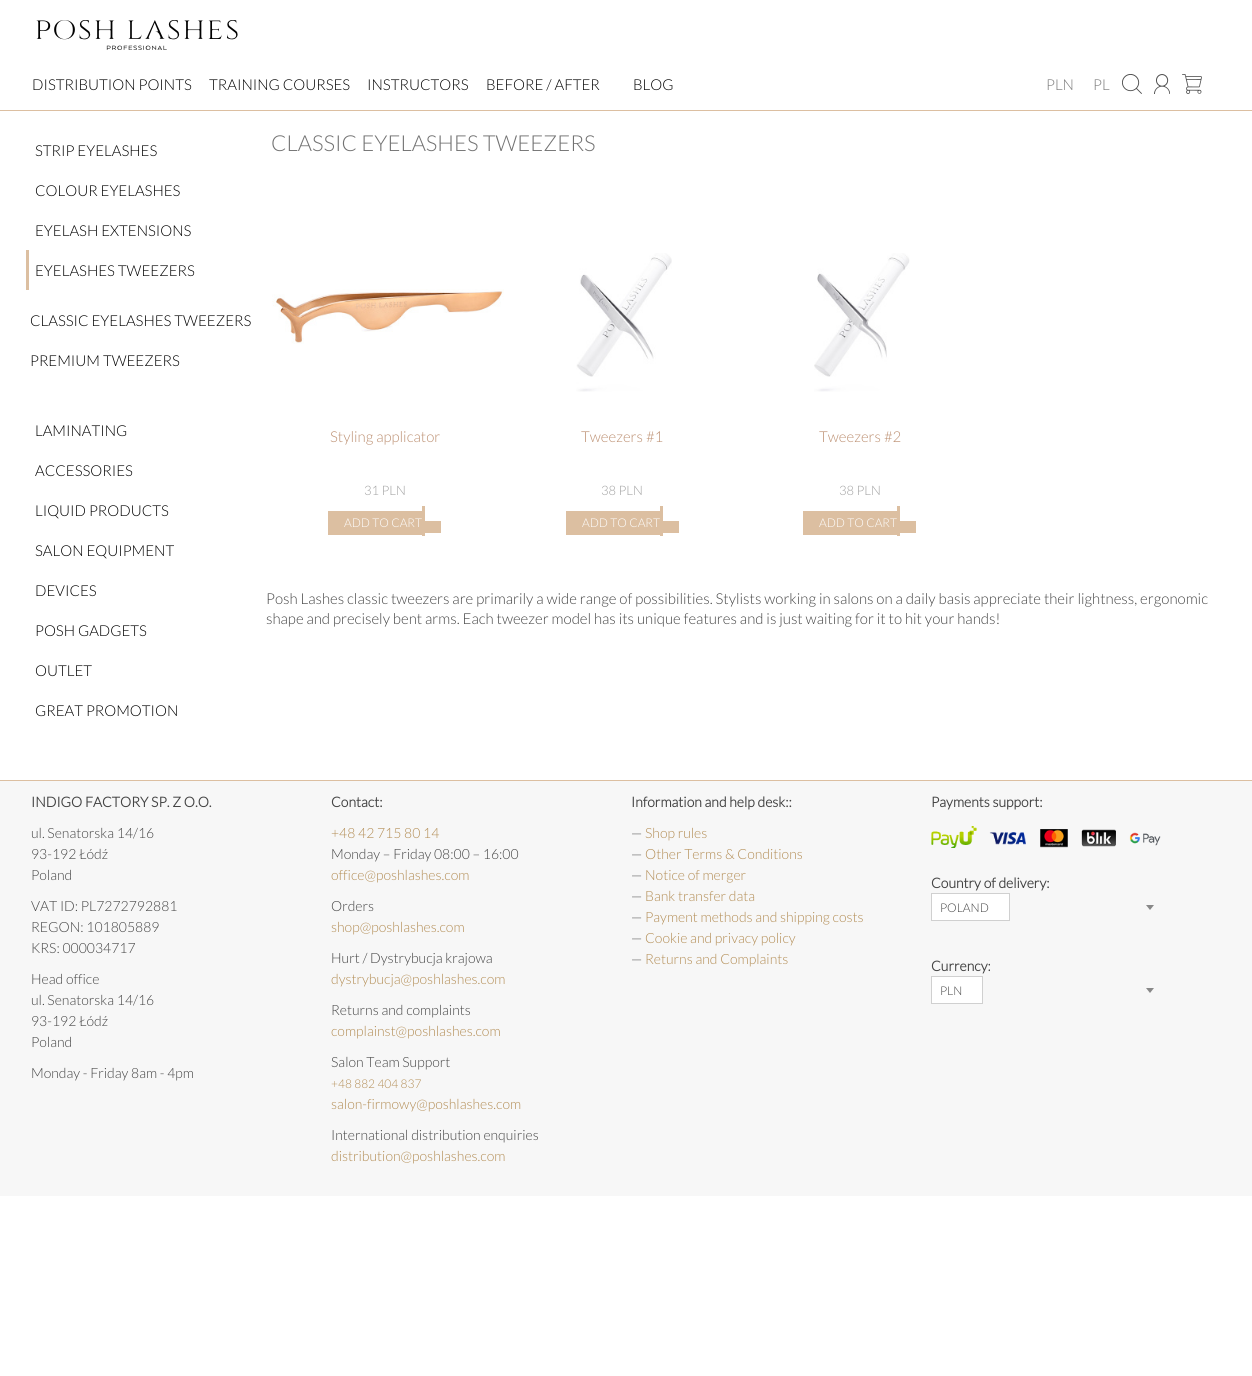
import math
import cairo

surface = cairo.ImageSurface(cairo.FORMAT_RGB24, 1252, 1376)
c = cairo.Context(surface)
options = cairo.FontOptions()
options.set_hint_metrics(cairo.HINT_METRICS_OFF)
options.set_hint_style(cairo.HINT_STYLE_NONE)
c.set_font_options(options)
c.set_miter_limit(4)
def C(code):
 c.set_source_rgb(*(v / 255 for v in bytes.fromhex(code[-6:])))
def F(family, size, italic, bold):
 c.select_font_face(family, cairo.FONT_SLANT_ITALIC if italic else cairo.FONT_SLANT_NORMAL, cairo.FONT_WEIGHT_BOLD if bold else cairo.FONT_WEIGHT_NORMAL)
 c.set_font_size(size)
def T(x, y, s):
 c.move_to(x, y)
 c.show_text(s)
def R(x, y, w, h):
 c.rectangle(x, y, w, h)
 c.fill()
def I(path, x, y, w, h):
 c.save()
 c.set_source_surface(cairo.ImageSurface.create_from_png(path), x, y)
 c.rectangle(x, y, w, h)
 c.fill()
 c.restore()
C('ffffff')
c.paint()
C('dcbfa1')
R(0,110,1252,1)
I('1.png',36,20,202,30)
F('Lato Light',15,0,0)
C('000000')
T(32,90,'DISTRIBUTION POINTS')
T(209,90,'TRAINING COURSES')
T(367,90,'INSTRUCTORS')
T(486,90,'BEFORE / AFTER')
T(633,90,'BLOG')
C('797979')
T(1046,90,'PLN')
T(1093,90,'PL')
I('2.png',1122,74,20,20)
I('3.png',1154,74,16,20)
I('4.png',1182,74,20,20)
C('000000')
T(35,156,'STRIP EYELASHES')
T(35,196,'COLOUR EYELASHES')
T(35,236,'EYELASH EXTENSIONS')
C('dcbfa1')
R(26,250,3,40)
C('000000')
T(35,276,'EYELASHES TWEEZERS')
T(30,326,'CLASSIC EYELASHES TWEEZERS')
T(30,366,'PREMIUM TWEEZERS')
T(35,436,'LAMINATING')
T(35,476,'ACCESSORIES')
T(35,516,'LIQUID PRODUCTS')
T(35,556,'SALON EQUIPMENT')
T(35,596,'DEVICES')
T(35,636,'POSH GADGETS')
T(35,676,'OUTLET')
T(35,716,'GREAT PROMOTION')
F('Lato Light',22,0,0)
C('727272')
T(271,151,'CLASSIC EYELASHES TWEEZERS')
I('5.png',272,289,232,55)
F('Lato Light',15,0,0)
C('bc8f71')
T(330,442,'Styling applicator')
F('Lato Light',13,0,0)
C('a0a0a0')
T(364,495,'31 PLN')
C('dcbfa1')
R(328,511,94,24)
R(422,506,3,30)
R(425,521,16,12)
F('Lato Light',12,0,0)
C('ffffff')
T(344,527,'ADD TO CART')
I('6.png',576,253,96,139)
F('Lato Light',15,0,0)
C('bc8f71')
T(581,442,'Tweezers #1')
F('Lato Light',13,0,0)
C('a0a0a0')
T(601,495,'38 PLN')
C('dcbfa1')
R(566,511,94,24)
R(660,506,3,30)
R(663,521,16,12)
F('Lato Light',12,0,0)
C('ffffff')
T(582,527,'ADD TO CART')
I('7.png',814,253,96,139)
F('Lato Light',15,0,0)
C('bc8f71')
T(819,442,'Tweezers #2')
F('Lato Light',13,0,0)
C('a0a0a0')
T(839,495,'38 PLN')
C('dcbfa1')
R(803,511,94,24)
R(897,506,3,30)
R(900,521,16,12)
F('Lato Light',12,0,0)
C('ffffff')
T(819,527,'ADD TO CART')
F('Lato Light',15,0,0)
C('444444')
T(266,604,'Posh Lashes classic tweezers are primarily a wide range of possibilities. Stylists working in salons on a daily basis appreciate their lightness, ergonomic')
T(266,624,'shape and precisely bent arms. Each tweezer model has its unique features and is just waiting for it to hit your hands!')
C('f7f7f7')
R(0,781,1252,415)
C('dcbfa1')
R(0,780,1252,1)
F('Lato',14,0,1)
C('444444')
T(31,807,'INDIGO FACTORY SP. Z O.O.')
F('Lato Light',14,0,0)
T(31,838,'ul. Senatorska 14/16')
T(31,859,'93-192 Łódź')
T(31,880,'Poland')
T(31,911,'VAT ID: PL7272792881')
T(31,932,'REGON: 101805889')
T(31,953,'KRS: 000034717')
T(31,984,'Head office')
T(31,1005,'ul. Senatorska 14/16')
T(31,1026,'93-192 Łódź')
T(31,1047,'Poland')
T(31,1078,'Monday - Friday 8am - 4pm')
F('Lato',14,0,1)
T(331,807,'Contact:')
F('Lato Light',14,0,0)
C('b38d55')
T(331,838,'+48 42 715 80 14')
C('444444')
T(331,859,'Monday – Friday 08:00 – 16:00')
C('b38d55')
T(331,880,'office@poshlashes.com')
C('444444')
T(331,911,'Orders')
C('b38d55')
T(331,932,'shop@poshlashes.com')
C('444444')
T(331,963,'Hurt / Dystrybucja krajowa')
C('b38d55')
T(331,984,'dystrybucja@poshlashes.com')
C('444444')
T(331,1015,'Returns and complaints')
C('b38d55')
T(331,1036,'complainst@poshlashes.com')
C('444444')
T(331,1067,'Salon Team Support')
F('Lato Light',12,0,0)
C('b38d55')
T(331,1088,'+48 882 404 837')
F('Lato Light',14,0,0)
T(331,1109,'salon-firmowy@poshlashes.com')
C('444444')
T(331,1140,'International distribution enquiries')
C('b38d55')
T(331,1161,'distribution@poshlashes.com')
F('Lato',14,0,1)
C('444444')
T(631,807,'Information and help desk::')
F('Lato Light',14,0,0)
T(631,838,'—')
C('b38d55')
T(645,838,'Shop rules')
C('444444')
T(631,859,'—')
C('b38d55')
T(645,859,'Other Terms & Conditions')
C('444444')
T(631,880,'—')
C('b38d55')
T(645,880,'Notice of merger')
C('444444')
T(631,901,'—')
C('b38d55')
T(645,901,'Bank transfer data')
C('444444')
T(631,922,'—')
C('b38d55')
T(645,922,'Payment methods and shipping costs')
C('444444')
T(631,943,'—')
C('b38d55')
T(645,943,'Cookie and privacy policy')
C('444444')
T(631,964,'—')
C('b38d55')
T(645,964,'Returns and Complaints')
F('Lato',14,0,1)
C('444444')
T(931,807,'Payments support:')
I('8.png',931,826,230,22)
T(931,888,'Country of delivery:')
C('ffffff')
c.rectangle(931.5,893.5,78,27)
c.fill_preserve()
C('d0d0d0')
c.set_line_width(1)
c.stroke()
F('Lato Light',12,0,0)
C('444444')
T(940,912,'POLAND')
C('888888')
c.new_path()
c.move_to(1146,905)
c.line_to(1154,905)
c.line_to(1150,910)
c.close_path()
c.fill()
F('Lato',14,0,1)
C('444444')
T(931,971,'Currency:')
C('ffffff')
c.rectangle(931.5,976.5,51,27)
c.fill_preserve()
C('d0d0d0')
c.stroke()
F('Lato Light',12,0,0)
C('444444')
T(940,995,'PLN')
C('888888')
c.new_path()
c.move_to(1146,988)
c.line_to(1154,988)
c.line_to(1150,993)
c.close_path()
c.fill()
surface.write_to_png('o.png')
